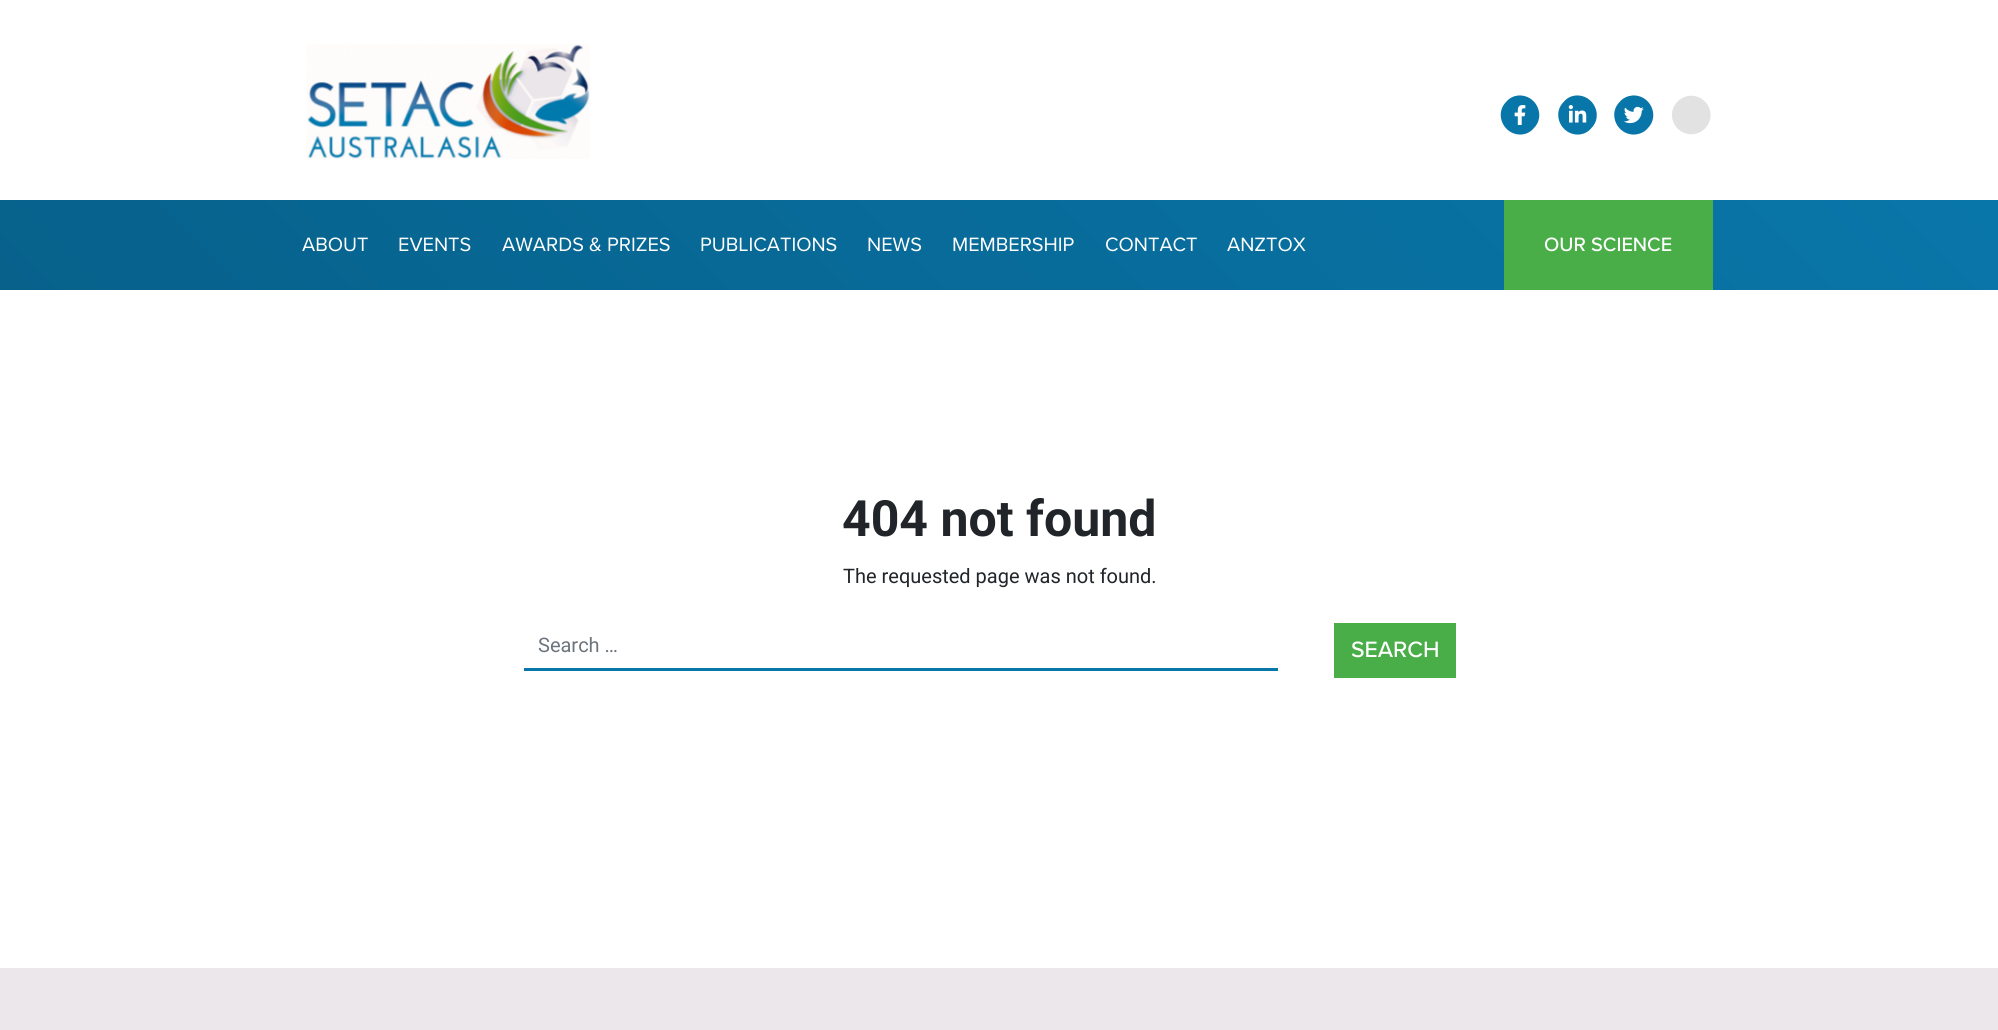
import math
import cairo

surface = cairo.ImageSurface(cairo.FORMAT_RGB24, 1998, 1030)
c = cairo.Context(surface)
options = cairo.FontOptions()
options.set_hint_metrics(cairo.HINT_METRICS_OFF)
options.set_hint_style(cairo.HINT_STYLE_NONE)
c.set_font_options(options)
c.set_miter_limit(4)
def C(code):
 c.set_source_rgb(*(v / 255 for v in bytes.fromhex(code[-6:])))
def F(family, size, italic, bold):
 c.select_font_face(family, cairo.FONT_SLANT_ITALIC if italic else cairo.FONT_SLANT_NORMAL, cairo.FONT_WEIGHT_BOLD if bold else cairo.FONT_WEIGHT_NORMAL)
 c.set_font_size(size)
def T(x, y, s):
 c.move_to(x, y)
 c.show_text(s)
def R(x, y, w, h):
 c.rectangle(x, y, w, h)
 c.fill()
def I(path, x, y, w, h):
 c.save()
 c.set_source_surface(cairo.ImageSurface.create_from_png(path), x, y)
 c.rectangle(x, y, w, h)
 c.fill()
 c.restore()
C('ffffff')
c.paint()
I('1.png',306,44,284,115)
C('0976a9')
c.new_path()
c.move_to(1506.5,101.5)
c.curve_to(1509.5,98,1513.5,96,1518,95.5)
c.curve_to(1536,94,1546.5,116,1533.5,128.5)
c.curve_to(1530.5,132,1526.5,134,1522,134.5)
c.curve_to(1504,136,1493.5,114,1506.5,101.5)
c.close_path()
c.fill()
I('2.png',1514,105,12,20)
c.new_path()
c.move_to(1564,101.5)
c.curve_to(1567,98,1571,96,1575.5,95.5)
c.curve_to(1593.5,94,1604,116,1591,128.5)
c.curve_to(1588,132,1584,134,1579.5,134.5)
c.curve_to(1561.5,136,1551,114,1564,101.5)
c.close_path()
c.fill()
I('3.png',1568,105,19,18)
c.new_path()
c.move_to(1620,101.5)
c.curve_to(1623,98,1627.5,96,1632,95.5)
c.curve_to(1650,94,1660.5,116,1647.5,128.5)
c.curve_to(1644.5,132,1640,134,1635.5,134.5)
c.curve_to(1617.5,136,1607,114,1620,101.5)
c.close_path()
c.fill()
I('4.png',1623,106,21,18)
C('e2e2e2')
c.new_path()
c.move_to(1677.5,101.5)
c.curve_to(1690.5,88.5,1712,99,1710.5,117)
c.curve_to(1710,121.5,1708,125.5,1705,128.5)
c.curve_to(1692,141.5,1670.5,131,1672,113)
c.curve_to(1672.5,108.5,1674.5,104.5,1677.5,101.5)
c.close_path()
c.fill()
gradient = cairo.LinearGradient(477,767,1522,-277)
gradient.add_color_stop_rgba(0,0.008,0,0.141,1)
gradient.add_color_stop_rgba(0,0.027,0.38,0.545,1)
gradient.add_color_stop_rgba(1,0.035,0.463,0.663,1)
c.set_source(gradient)
R(0,200,1998,90)
F('Proxima Nova',20,0,0)
C('ffffff')
T(302,251,'ABOUT')
T(398,251,'EVENTS')
T(502,251,'AWARDS & PRIZES')
T(700,251,'PUBLICATIONS')
T(867,251,'NEWS')
T(952,251,'MEMBERSHIP')
T(1105,251,'CONTACT')
T(1227,251,'ANZTOX')
C('4aae48')
R(1504,200,209,90)
F('Proxima Nova Medium',20,0,0)
C('ffffff')
T(1544,251,'OUR SCIENCE')
F('Roboto',50,0,1)
C('212529')
T(842,536,'404 not found')
F('Roboto',20,0,0)
T(843,583,'The requested page was not found.')
C('0976a9')
R(524,668,754,3)
C('6c757d')
T(538,652,'Search …')
C('4aae48')
R(1334,623,122,55)
F('Proxima Nova Medium',23,0,0)
C('ffffff')
T(1351,657,'SEARCH')
C('ebe7eb')
R(0,968,1998,62)
surface.write_to_png('o.png')
